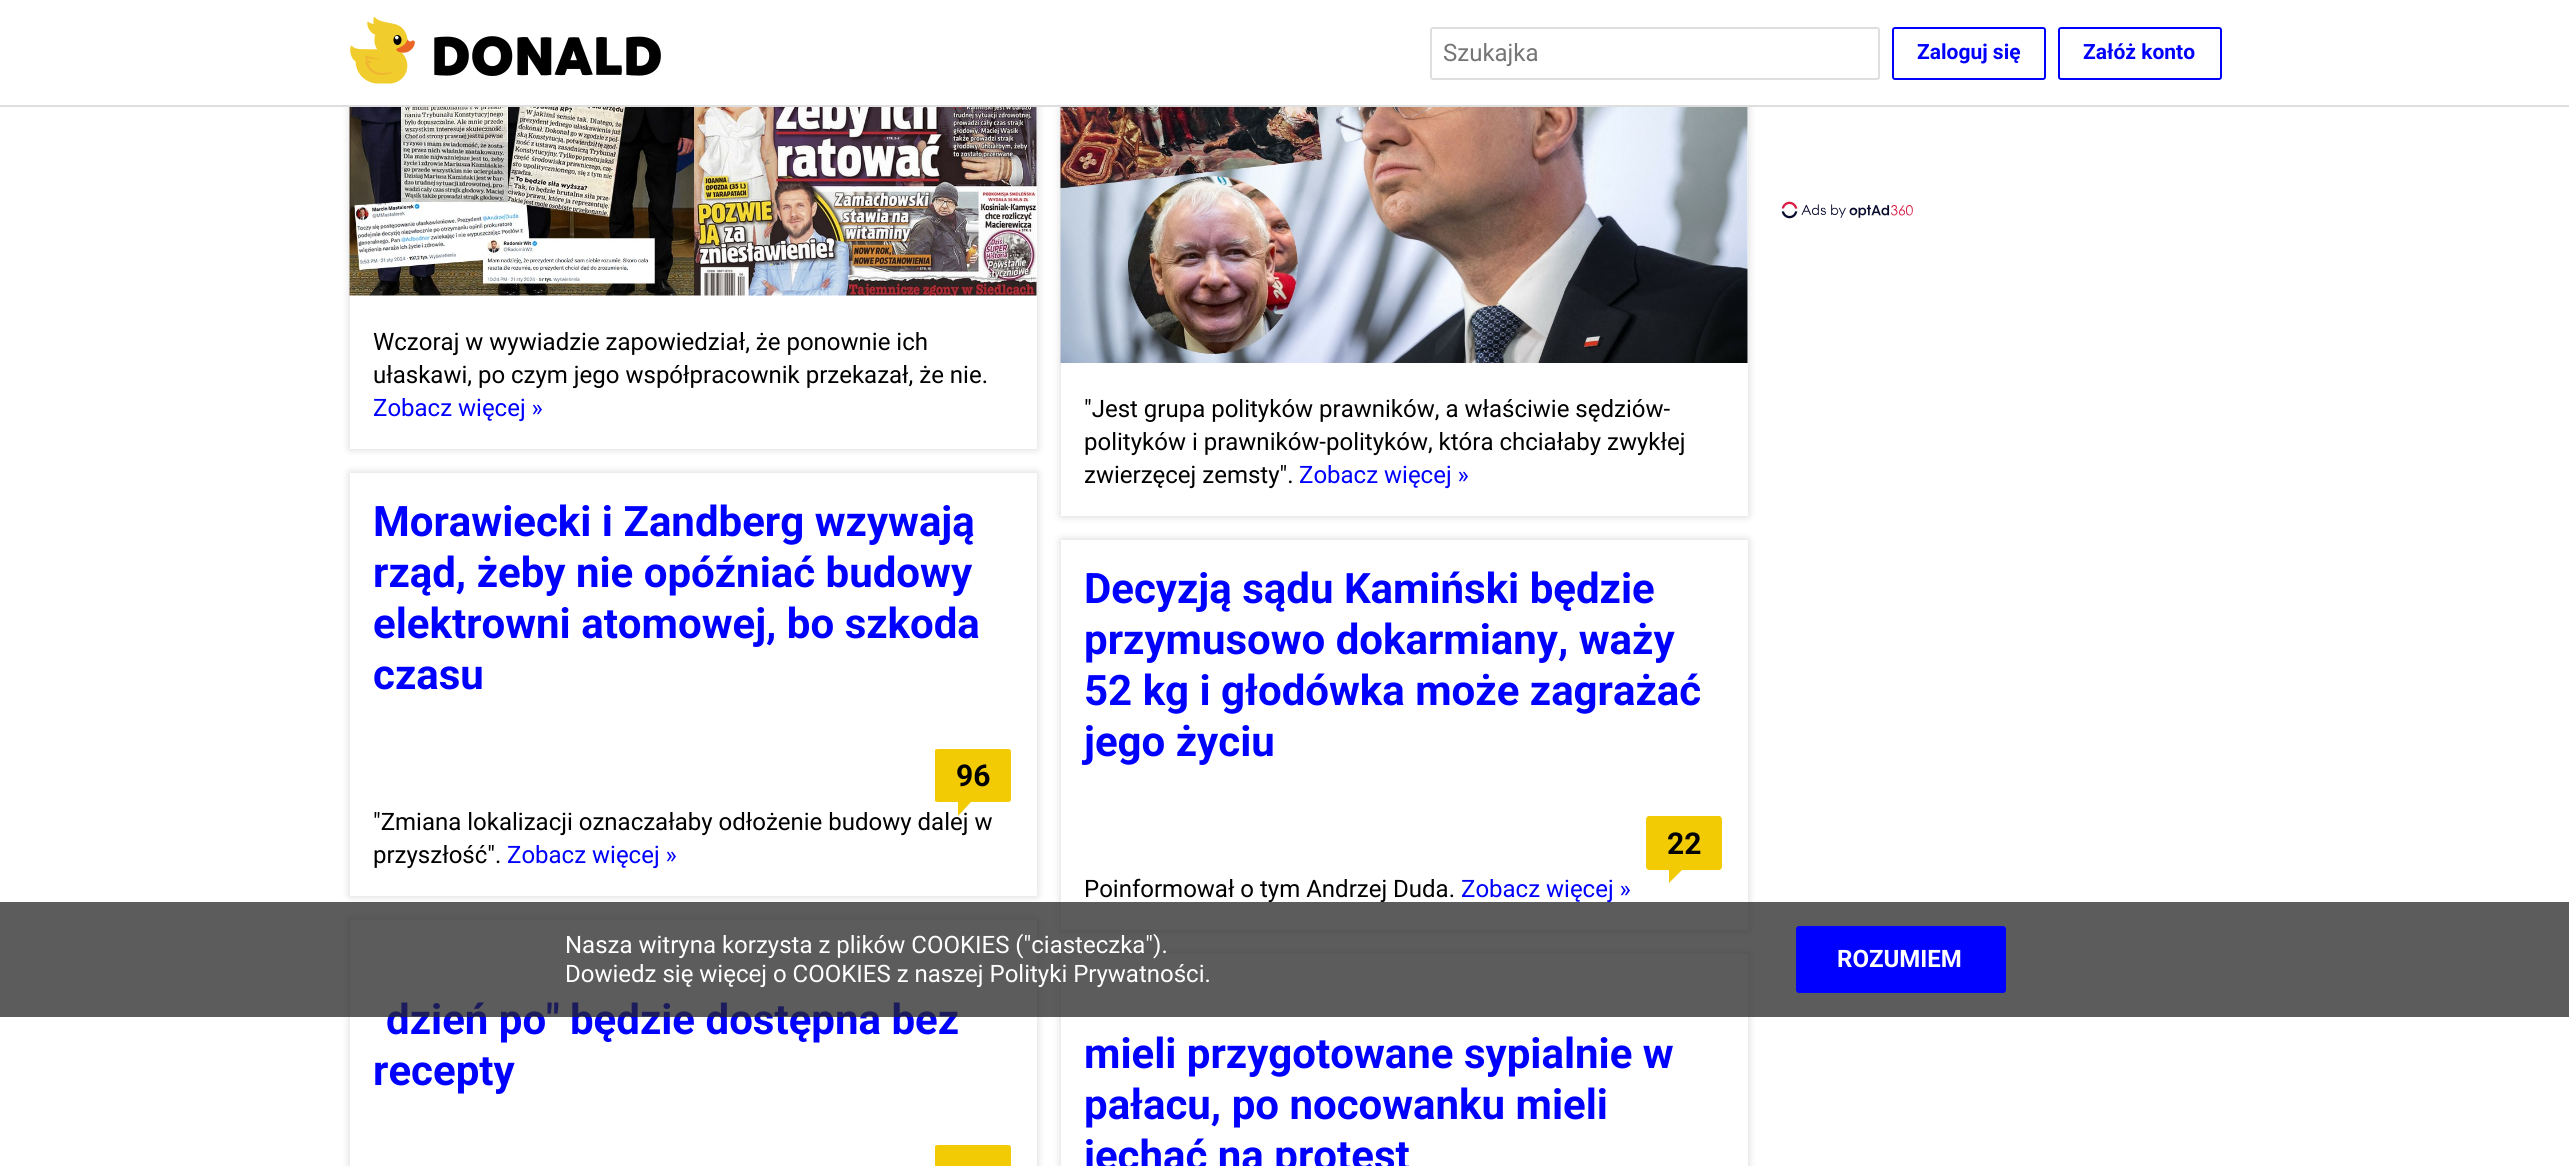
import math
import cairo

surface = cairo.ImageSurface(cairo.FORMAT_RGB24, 2569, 1166)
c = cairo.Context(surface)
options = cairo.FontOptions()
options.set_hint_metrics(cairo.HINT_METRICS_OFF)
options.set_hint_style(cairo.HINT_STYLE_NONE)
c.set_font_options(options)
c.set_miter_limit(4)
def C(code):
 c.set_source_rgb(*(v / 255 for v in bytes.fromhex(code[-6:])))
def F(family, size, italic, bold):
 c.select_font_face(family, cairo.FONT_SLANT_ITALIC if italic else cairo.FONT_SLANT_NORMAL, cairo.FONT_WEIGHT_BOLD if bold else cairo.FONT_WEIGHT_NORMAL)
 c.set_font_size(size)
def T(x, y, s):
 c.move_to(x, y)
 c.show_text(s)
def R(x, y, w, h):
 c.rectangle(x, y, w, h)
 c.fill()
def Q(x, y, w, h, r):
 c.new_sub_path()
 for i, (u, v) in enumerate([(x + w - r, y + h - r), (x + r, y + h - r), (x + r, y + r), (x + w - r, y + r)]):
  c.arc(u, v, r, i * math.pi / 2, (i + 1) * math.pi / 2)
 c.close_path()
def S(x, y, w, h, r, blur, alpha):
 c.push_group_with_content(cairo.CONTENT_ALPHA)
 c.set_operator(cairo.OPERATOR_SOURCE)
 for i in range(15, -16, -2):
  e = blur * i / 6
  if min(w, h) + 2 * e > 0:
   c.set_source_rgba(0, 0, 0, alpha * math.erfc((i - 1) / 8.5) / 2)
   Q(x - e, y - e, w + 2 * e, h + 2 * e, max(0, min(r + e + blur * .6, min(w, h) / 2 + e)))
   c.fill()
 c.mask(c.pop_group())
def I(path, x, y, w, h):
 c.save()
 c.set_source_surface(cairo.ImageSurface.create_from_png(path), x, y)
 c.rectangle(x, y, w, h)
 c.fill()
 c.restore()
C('ffffff')
c.paint()
c.save()
c.set_fill_rule(cairo.FILL_RULE_EVEN_ODD)
c.new_path()
c.move_to(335,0)
c.line_to(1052,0)
c.line_to(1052,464)
c.line_to(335,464)
c.close_path()
c.move_to(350,-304)
c.line_to(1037,-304)
c.line_to(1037,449)
c.line_to(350,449)
c.close_path()
c.clip()
C('000000')
S(350,-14,687,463,0,4.5,.16)
c.restore()
c.save()
c.set_fill_rule(cairo.FILL_RULE_EVEN_ODD)
c.new_path()
c.move_to(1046,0)
c.line_to(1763,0)
c.line_to(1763,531)
c.line_to(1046,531)
c.close_path()
c.move_to(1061,-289)
c.line_to(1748,-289)
c.line_to(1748,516)
c.line_to(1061,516)
c.close_path()
c.clip()
C('000000')
S(1061,-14,687,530,0,4.5,.16)
c.restore()
C('ffffff')
R(343,0,1412,105)
C('dedede')
R(0,105,2569,2)
I('1.png',350,16,311,68)
Q(1431,28,448,51,2)
c.stroke()
F('Roboto',24,0,0)
C('757575')
T(1443,61,'Szukajka')
Q(1893,28,152,51,2)
C('0000ff')
c.stroke()
F('Roboto',21,0,1)
T(1917,59,'Zaloguj się')
Q(2059,28,162,51,2)
c.stroke()
T(2083,59,'Załóż konto')
I('2.png',1781,201,132,18)
I('3.png',349,107,688,189)
F('Roboto',24,0,0)
C('000000')
T(373,350,'Wczoraj w wywiadzie zapowiedział, że ponownie ich')
T(373,383,'ułaskawi, po czym jego współpracownik przekazał, że nie.')
C('0000ff')
T(373,416,'Zobacz więcej »')
c.save()
c.set_fill_rule(cairo.FILL_RULE_EVEN_ODD)
c.new_path()
c.move_to(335,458)
c.line_to(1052,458)
c.line_to(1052,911)
c.line_to(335,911)
c.close_path()
c.move_to(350,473)
c.line_to(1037,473)
c.line_to(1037,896)
c.line_to(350,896)
c.close_path()
c.clip()
C('000000')
S(350,473,687,423,0,4.5,.16)
c.restore()
F('Roboto',42,0,1)
T(373,536,'Morawiecki i Zandberg wzywają')
T(373,587,'rząd, żeby nie opóźniać budowy')
T(373,638,'elektrowni atomowej, bo szkoda')
T(373,689,'czasu')
F('Roboto',24,0,0)
C('000000')
T(373,830,'"Zmiana lokalizacji oznaczałaby odłożenie budowy dalej w')
c.save()
c.rectangle(935,749,76,67)
c.clip()
C('f2cb05')
c.new_path()
c.move_to(1011,799)
c.curve_to(1011,801,1010,802,1008,802)
c.line_to(971,802)
c.line_to(958,816)
c.line_to(958,802)
c.line_to(938,802)
c.curve_to(936,802,934,801,934,799)
c.line_to(934,752)
c.curve_to(934,750,936,749,938,749)
c.line_to(1008,749)
c.curve_to(1010,749,1011,750,1011,752)
c.close_path()
c.fill()
c.restore()
F('Roboto',30,0,1)
T(956,786,'96')
F('Roboto',24,0,0)
T(373,863,'przyszłość".')
C('0000ff')
T(507,863,'Zobacz więcej »')
c.save()
c.set_fill_rule(cairo.FILL_RULE_EVEN_ODD)
c.new_path()
c.move_to(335,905)
c.line_to(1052,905)
c.line_to(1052,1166)
c.line_to(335,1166)
c.close_path()
c.move_to(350,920)
c.line_to(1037,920)
c.line_to(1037,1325)
c.line_to(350,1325)
c.close_path()
c.clip()
C('000000')
S(350,920,687,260,0,4.5,.16)
c.restore()
F('Roboto',42,0,1)
T(386,1034,'dzień po" będzie dostępna bez')
T(373,1085,'recepty')
c.save()
c.rectangle(935,1145,76,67)
c.clip()
C('f2cb05')
c.new_path()
c.move_to(1011,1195)
c.curve_to(1011,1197,1010,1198,1008,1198)
c.line_to(971,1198)
c.line_to(958,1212)
c.line_to(958,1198)
c.line_to(938,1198)
c.curve_to(936,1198,934,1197,934,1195)
c.line_to(934,1148)
c.curve_to(934,1146,936,1145,938,1145)
c.line_to(1008,1145)
c.curve_to(1010,1145,1011,1146,1011,1148)
c.close_path()
c.fill()
c.restore()
I('4.png',1060,107,688,256)
F('Roboto',24,0,0)
C('000000')
T(1084,417,'"Jest grupa polityków prawników, a właściwie sędziów-')
T(1084,450,'polityków i prawników-polityków, która chciałaby zwykłej')
T(1084,483,'zwierzęcej zemsty".')
C('0000ff')
T(1299,483,'Zobacz więcej »')
c.save()
c.set_fill_rule(cairo.FILL_RULE_EVEN_ODD)
c.new_path()
c.move_to(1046,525)
c.line_to(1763,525)
c.line_to(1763,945)
c.line_to(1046,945)
c.close_path()
c.move_to(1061,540)
c.line_to(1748,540)
c.line_to(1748,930)
c.line_to(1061,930)
c.close_path()
c.clip()
C('000000')
S(1061,540,687,390,0,4.5,.16)
c.restore()
F('Roboto',42,0,1)
T(1084,603,'Decyzją sądu Kamiński będzie')
T(1084,654,'przymusowo dokarmiany, waży')
T(1084,705,'52 kg i głodówka może zagrażać')
T(1084,756,'jego życiu')
C('f2cb05')
c.new_path()
c.move_to(1722,866)
c.curve_to(1722,868,1721,870,1719,870)
c.line_to(1682,870)
c.line_to(1669,883)
c.line_to(1669,870)
c.line_to(1649,870)
c.curve_to(1647,870,1646,868,1646,866)
c.line_to(1646,820)
c.curve_to(1646,818,1647,816,1649,816)
c.line_to(1719,816)
c.curve_to(1721,816,1722,818,1722,820)
c.close_path()
c.fill()
F('Roboto',30,0,1)
C('000000')
T(1667,854,'22')
F('Roboto',24,0,0)
T(1084,897,'Poinformował o tym Andrzej Duda.')
C('0000ff')
T(1461,897,'Zobacz więcej »')
c.save()
c.set_fill_rule(cairo.FILL_RULE_EVEN_ODD)
c.new_path()
c.move_to(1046,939)
c.line_to(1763,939)
c.line_to(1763,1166)
c.line_to(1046,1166)
c.close_path()
c.move_to(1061,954)
c.line_to(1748,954)
c.line_to(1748,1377)
c.line_to(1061,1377)
c.close_path()
c.clip()
C('000000')
S(1061,954,687,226,0,4.5,.16)
c.restore()
F('Roboto',42,0,1)
T(1084,1068,'mieli przygotowane sypialnie w')
T(1084,1119,'pałacu, po nocowanku mieli')
T(1084,1170,'jechać na protest')
c.set_source_rgba(0.149,0.149,0.149,0.75)
R(0,902,2569,115)
F('Roboto',24,0,0)
C('ffffff')
T(565,953,'Nasza witryna korzysta z plików COOKIES ("ciasteczka").')
T(565,982,'Dowiedz się więcej o COOKIES z naszej Polityki Prywatności.')
C('0000ff')
Q(1796,926,210,67,3)
c.fill()
F('Roboto',24,0,1)
C('ffffff')
T(1837,967,'ROZUMIEM')
surface.write_to_png('o.png')
